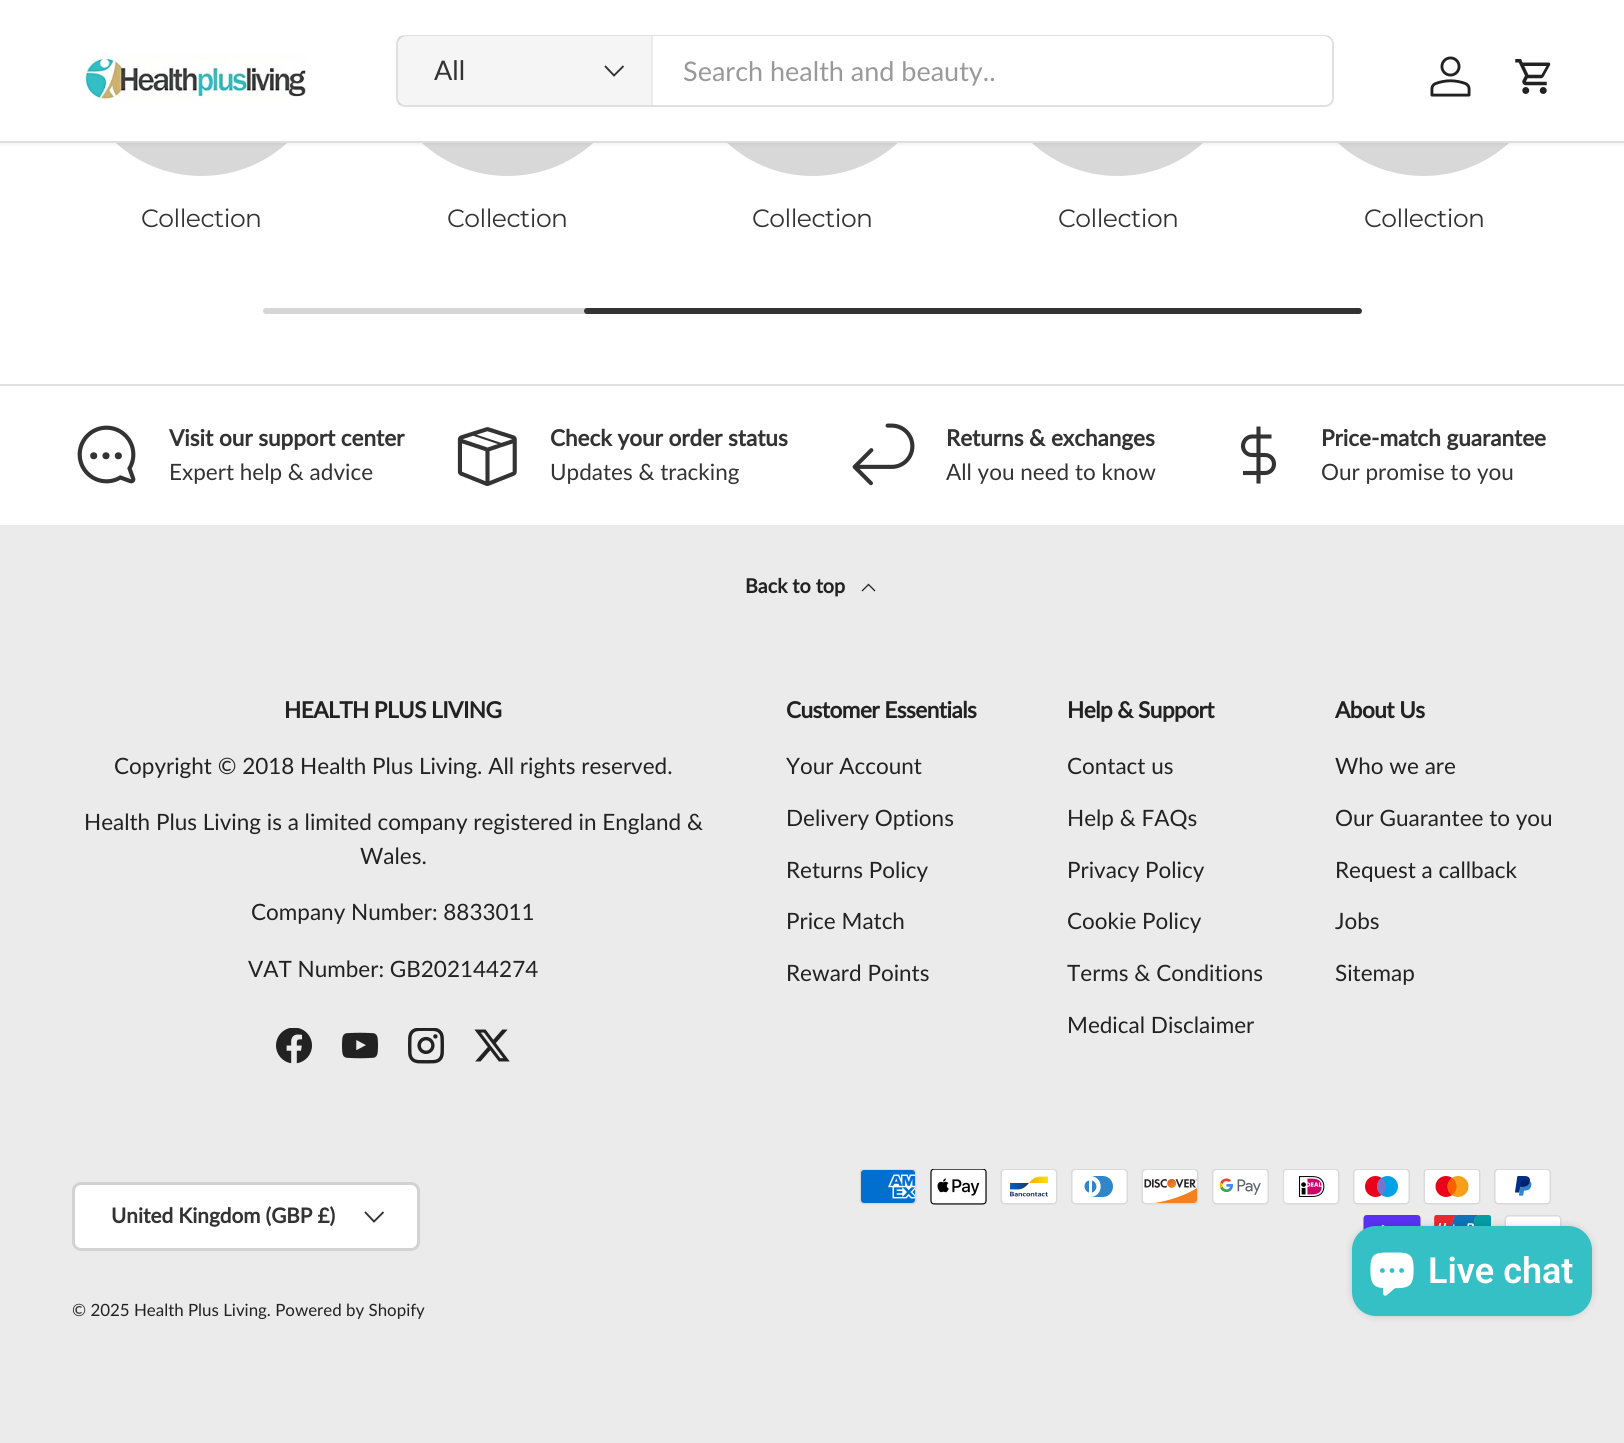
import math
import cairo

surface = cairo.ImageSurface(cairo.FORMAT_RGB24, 1624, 1443)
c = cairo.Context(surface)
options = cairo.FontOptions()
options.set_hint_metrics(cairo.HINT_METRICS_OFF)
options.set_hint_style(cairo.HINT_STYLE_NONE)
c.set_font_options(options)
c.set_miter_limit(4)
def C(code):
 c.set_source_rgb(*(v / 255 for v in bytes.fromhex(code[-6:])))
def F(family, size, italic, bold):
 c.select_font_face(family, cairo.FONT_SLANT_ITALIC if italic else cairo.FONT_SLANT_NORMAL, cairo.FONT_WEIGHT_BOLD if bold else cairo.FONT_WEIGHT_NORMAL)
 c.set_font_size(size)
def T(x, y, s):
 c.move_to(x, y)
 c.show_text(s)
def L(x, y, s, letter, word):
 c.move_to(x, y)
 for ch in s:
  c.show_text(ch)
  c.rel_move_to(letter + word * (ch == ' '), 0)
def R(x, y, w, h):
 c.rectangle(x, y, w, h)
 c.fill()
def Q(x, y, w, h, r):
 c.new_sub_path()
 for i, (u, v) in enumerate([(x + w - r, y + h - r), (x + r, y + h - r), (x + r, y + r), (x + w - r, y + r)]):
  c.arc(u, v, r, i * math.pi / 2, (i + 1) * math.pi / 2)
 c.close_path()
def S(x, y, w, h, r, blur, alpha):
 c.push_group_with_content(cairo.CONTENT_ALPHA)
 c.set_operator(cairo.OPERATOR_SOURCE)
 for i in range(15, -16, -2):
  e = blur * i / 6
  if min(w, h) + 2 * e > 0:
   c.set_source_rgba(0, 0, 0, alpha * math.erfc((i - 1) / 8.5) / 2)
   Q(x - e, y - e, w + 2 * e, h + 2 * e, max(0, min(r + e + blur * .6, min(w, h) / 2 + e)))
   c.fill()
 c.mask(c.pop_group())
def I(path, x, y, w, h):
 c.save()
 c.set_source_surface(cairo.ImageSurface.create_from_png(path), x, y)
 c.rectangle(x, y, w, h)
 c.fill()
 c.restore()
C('ffffff')
c.paint()
C('d8d8d8')
c.arc(201.5,48.5,127.5,0,2 * math.pi)
c.fill()
c.arc(507.5,48.5,127.5,0,2 * math.pi)
c.fill()
Q(686,-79,253,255,126.5)
c.fill()
c.arc(1117.5,48.5,127.5,0,2 * math.pi)
c.fill()
c.arc(1423.5,48.5,127.5,0,2 * math.pi)
c.fill()
C('000000')
S(-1,-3,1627,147,0,2,.08)
C('ffffff')
R(0,0,1624,141)
I('1.png',84,54,222,46)
Q(397,36,936,70,8)
C('e0e0e0')
c.stroke()
C('ffffff')
Q(398,36,934,69,9)
c.fill()
c.set_source_rgba(0.2,0.2,0.2,0.05)
R(398,36,253,69)
C('ebebeb')
R(651,36,2,69)
F('Lato',27,0,0)
C('333333')
T(434,80,'All')
c.new_path()
c.move_to(623.5,66)
c.line_to(614,75.5)
c.line_to(605,66)
c.set_line_width(1.9)
c.stroke()
C('999999')
T(683,81,'Search health and beauty..')
I('2.png',1430,56,41,41)
I('3.png',1515,59,36,35)
C('dedede')
R(0,141,1624,2)
F('Montserrat',25,0,0)
C('333333')
L(141,227,'Collection',-.5,0)
L(447,227,'Collection',-.5,0)
L(752,227,'Collection',-.5,0)
L(1058,227,'Collection',-.5,0)
L(1364,227,'Collection',-.5,0)
C('d6d6d6')
Q(263,308,1099,6,3)
c.fill()
C('333333')
Q(584,308,778,6,3)
c.fill()
C('e0e0e0')
R(0,384,1624,2)
I('4.png',77,425,59,59)
F('Lato',22.5,0,1)
C('333333')
T(169,446,'Visit our support center')
F('Lato',22.5,0,0)
T(169,480,'Expert help & advice')
I('5.png',457,427,60,59)
F('Lato',22.5,0,1)
T(550,446,'Check your order status')
F('Lato',22.5,0,0)
T(550,480,'Updates & tracking')
I('6.png',852,423,63,63)
F('Lato',22.5,0,1)
T(946,446,'Returns & exchanges')
F('Lato',22.5,0,0)
T(946,480,'All you need to know')
c.new_path()
c.move_to(1258.5,426.5)
c.line_to(1258.5,483.5)
c.move_to(1271.5,436.5)
c.line_to(1252,436.5)
c.curve_to(1247,436.5,1243,441,1243,446)
c.curve_to(1243,451,1247,455,1252,455)
c.line_to(1265,455)
c.curve_to(1270,455,1274,459,1274,464)
c.curve_to(1274,469,1270,473,1265,473)
c.line_to(1243,473)
c.set_line_width(4.1)
c.stroke()
F('Lato',22.5,0,1)
T(1321,446,'Price-match guarantee')
F('Lato',22.5,0,0)
T(1321,480,'Our promise to you')
C('ebebeb')
R(0,525,1624,918)
F('Lato',19.75,0,1)
C('222222')
T(745,593,'Back to top')
c.new_path()
c.move_to(862,591)
c.line_to(868.5,584.5)
c.line_to(875,591)
c.set_line_width(1.3)
c.stroke()
F('Lato',22.5,0,1)
L(284,718,'HEALTH PLUS LIVING',-.5,0)
F('Lato',22.5,0,0)
T(114,774,'Copyright © 2018 Health Plus Living. All rights reserved.')
T(84,830,'Health Plus Living is a limited company registered in England &')
T(360,864,'Wales.')
T(251,920,'Company Number: 8833011')
T(248,977,'VAT Number: GB202144274')
I('7.png',276,1028,36,36)
I('8.png',342,1032,36,27)
I('9.png',408,1028,36,36)
I('10.png',474,1029,36,33)
F('Lato',22.5,0,1)
L(786,718,'Customer Essentials',-.5,0)
F('Lato',22.5,0,0)
T(786,774,'Your Account')
T(786,826,'Delivery Options')
T(786,878,'Returns Policy')
T(786,929,'Price Match')
T(786,981,'Reward Points')
F('Lato',22.5,0,1)
L(1067,718,'Help & Support',-.5,0)
F('Lato',22.5,0,0)
T(1067,774,'Contact us')
T(1067,826,'Help & FAQs')
T(1067,878,'Privacy Policy')
T(1067,929,'Cookie Policy')
T(1067,981,'Terms & Conditions')
T(1067,1033,'Medical Disclaimer')
F('Lato',22.5,0,1)
L(1335,718,'About Us',-.5,0)
F('Lato',22.5,0,0)
T(1335,774,'Who we are')
T(1335,826,'Our Guarantee to you')
T(1335,878,'Request a callback')
T(1335,929,'Jobs')
T(1335,981,'Sitemap')
C('ffffff')
Q(72,1182,348,69,9)
c.fill()
Q(73.5,1183.5,345,66,7.5)
c.set_source_rgba(0.133,0.133,0.133,0.2)
c.set_line_width(3)
c.stroke()
F('Lato',20.75,0,1)
C('333333')
T(111,1223,'United Kingdom (GBP £)')
c.new_path()
c.move_to(383.5,1212)
c.line_to(374,1221.5)
c.line_to(365,1212)
c.set_line_width(1.9)
c.stroke()
I('11.png',859,1169,58,36)
I('12.png',930,1169,57,36)
I('13.png',1000,1169,58,36)
I('14.png',1071,1169,57,36)
I('15.png',1141,1169,58,36)
I('16.png',1212,1169,57,36)
I('17.png',1283,1169,57,36)
I('18.png',1353,1169,57,36)
I('19.png',1423,1169,58,36)
I('20.png',1494,1169,57,36)
I('21.png',1363,1215,58,15)
I('22.png',1434,1215,57,11)
I('23.png',1504,1215,58,11)
F('Lato',16.9,0,0)
C('222222')
T(72,1316,'© 2025 Health Plus Living. Powered by Shopify')
C('000000')
S(1352,1226,240,90,24,4,.15)
C('35c0c6')
Q(1352,1226,240,90,24)
c.fill()
I('24.png',1370,1252,44,44)
F('Roboto SemiBold',36,0,0)
C('ffffff')
T(1428,1283,'Live chat')
surface.write_to_png('o.png')
